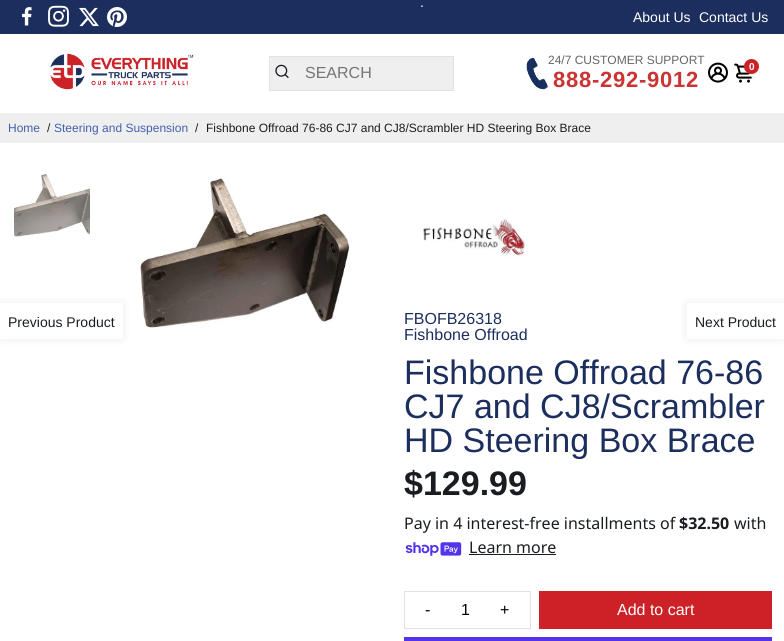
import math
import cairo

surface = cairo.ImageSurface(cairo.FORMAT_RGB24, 784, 641)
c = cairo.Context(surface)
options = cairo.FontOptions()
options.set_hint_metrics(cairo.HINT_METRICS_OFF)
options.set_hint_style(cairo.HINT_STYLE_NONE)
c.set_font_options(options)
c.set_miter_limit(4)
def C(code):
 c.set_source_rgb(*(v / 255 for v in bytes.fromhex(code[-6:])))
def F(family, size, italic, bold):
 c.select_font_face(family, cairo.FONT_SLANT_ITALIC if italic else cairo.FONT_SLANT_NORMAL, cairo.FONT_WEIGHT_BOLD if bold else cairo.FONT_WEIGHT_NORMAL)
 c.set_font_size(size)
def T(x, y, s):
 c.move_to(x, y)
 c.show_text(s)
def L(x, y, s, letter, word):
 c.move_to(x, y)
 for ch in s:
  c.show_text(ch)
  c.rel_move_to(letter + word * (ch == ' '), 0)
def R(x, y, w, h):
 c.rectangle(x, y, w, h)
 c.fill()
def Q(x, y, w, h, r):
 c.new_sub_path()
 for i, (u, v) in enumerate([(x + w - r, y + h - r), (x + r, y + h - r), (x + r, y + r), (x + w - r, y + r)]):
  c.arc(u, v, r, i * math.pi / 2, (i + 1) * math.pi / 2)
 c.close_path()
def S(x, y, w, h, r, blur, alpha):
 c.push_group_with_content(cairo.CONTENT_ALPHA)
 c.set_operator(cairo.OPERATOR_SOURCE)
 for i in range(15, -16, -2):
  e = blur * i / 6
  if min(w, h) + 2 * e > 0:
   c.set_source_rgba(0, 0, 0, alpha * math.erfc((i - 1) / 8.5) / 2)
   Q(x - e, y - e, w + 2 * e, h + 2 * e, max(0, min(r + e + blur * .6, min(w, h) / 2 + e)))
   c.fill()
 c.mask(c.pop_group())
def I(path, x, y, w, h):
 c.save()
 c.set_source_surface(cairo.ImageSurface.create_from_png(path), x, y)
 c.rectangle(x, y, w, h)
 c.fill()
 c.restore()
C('ffffff')
c.paint()
C('1c2e5d')
R(0,0,784,34)
I('1.png',22,7,10,19)
I('2.png',48,5,21,22)
I('3.png',79,7,20,20)
I('4.png',107,7,20,20)
F('Liberation Sans',14,0,0)
C('ffffff')
T(420,7,'.')
T(633,22,'About Us')
T(699,22,'Contact Us')
I('5.png',50,53,144,37)
C('efefef')
c.rectangle(269.5,56.5,184,34)
c.fill_preserve()
C('e2e2e2')
c.set_line_width(1)
c.stroke()
I('6.png',275,64,14,14)
F('Liberation Sans',16,0,0)
C('757575')
T(305,78,'SEARCH')
I('7.png',526,57,22,33)
F('Liberation Sans',12,0,0)
C('666666')
T(548,64,'24/7 CUSTOMER SUPPORT')
F('Liberation Sans',22,0,1)
C('cc3333')
L(553,87,'888-292-9012',.75,0)
I('8.png',708,62,20,21)
I('9.png',734,63,18,20)
C('cb2127')
c.arc(751.5,66.5,7.5,0,2 * math.pi)
c.fill()
F('Liberation Sans',10,0,1)
C('ffffff')
T(749,70,'0')
C('efefef')
R(0,113,784,30)
F('Liberation Sans',12,0,0)
C('4360ad')
T(8,132,'Home')
C('191d21')
T(47,132,'/')
C('4360ad')
T(54,132,'Steering and Suspension')
C('191d21')
T(195,132,'/')
T(206,132,'Fishbone Offroad 76-86 CJ7 and CJ8/Scrambler HD Steering Box Brace')
C('000000')
S(0,303,123,36,0,5,.08)
C('ffffff')
R(0,303,123,36)
F('Liberation Sans',14,0,0)
C('191d21')
T(8,327,'Previous Product')
I('10.png',14,173,76,64)
I('11.png',139,178,211,150)
I('12.png',423,219,103,38)
F('Liberation Sans',16,0,0)
C('1c2e5d')
T(404,324,'FBOFB26318')
T(404,340,'Fishbone Offroad')
F('Liberation Sans',34,0,0)
T(404,384,'Fishbone Offroad 76-86')
T(404,418,'CJ7 and CJ8/Scrambler')
T(404,452,'HD Steering Box Brace')
F('Liberation Sans',34,0,1)
C('191d21')
T(404,495,'$129.99')
F('Noto Sans',16,0,0)
T(404,529,'Pay in 4 interest-free installments of')
F('Noto Sans',16,0,1)
T(679,529,'$32.50')
F('Noto Sans',16,0,0)
T(734,529,'with')
I('13.png',405,542,57,14)
T(469,553,'Learn more')
R(469,554,87,1)
c.rectangle(404.5,591.5,126,37)
C('e2e2e2')
c.stroke()
F('Liberation Sans',16,0,0)
C('000000')
T(425,615,'-')
T(461,615,'1')
T(500,615,'+')
C('cb2127')
R(539,591,233,38)
C('ffffff')
T(617,615,'Add to cart')
C('5433eb')
R(404,637,368,4)
C('000000')
S(687,303,97,36,0,5,.08)
C('ffffff')
R(687,303,97,36)
F('Liberation Sans',14,0,0)
C('191d21')
T(695,327,'Next Product')
surface.write_to_png('o.png')
